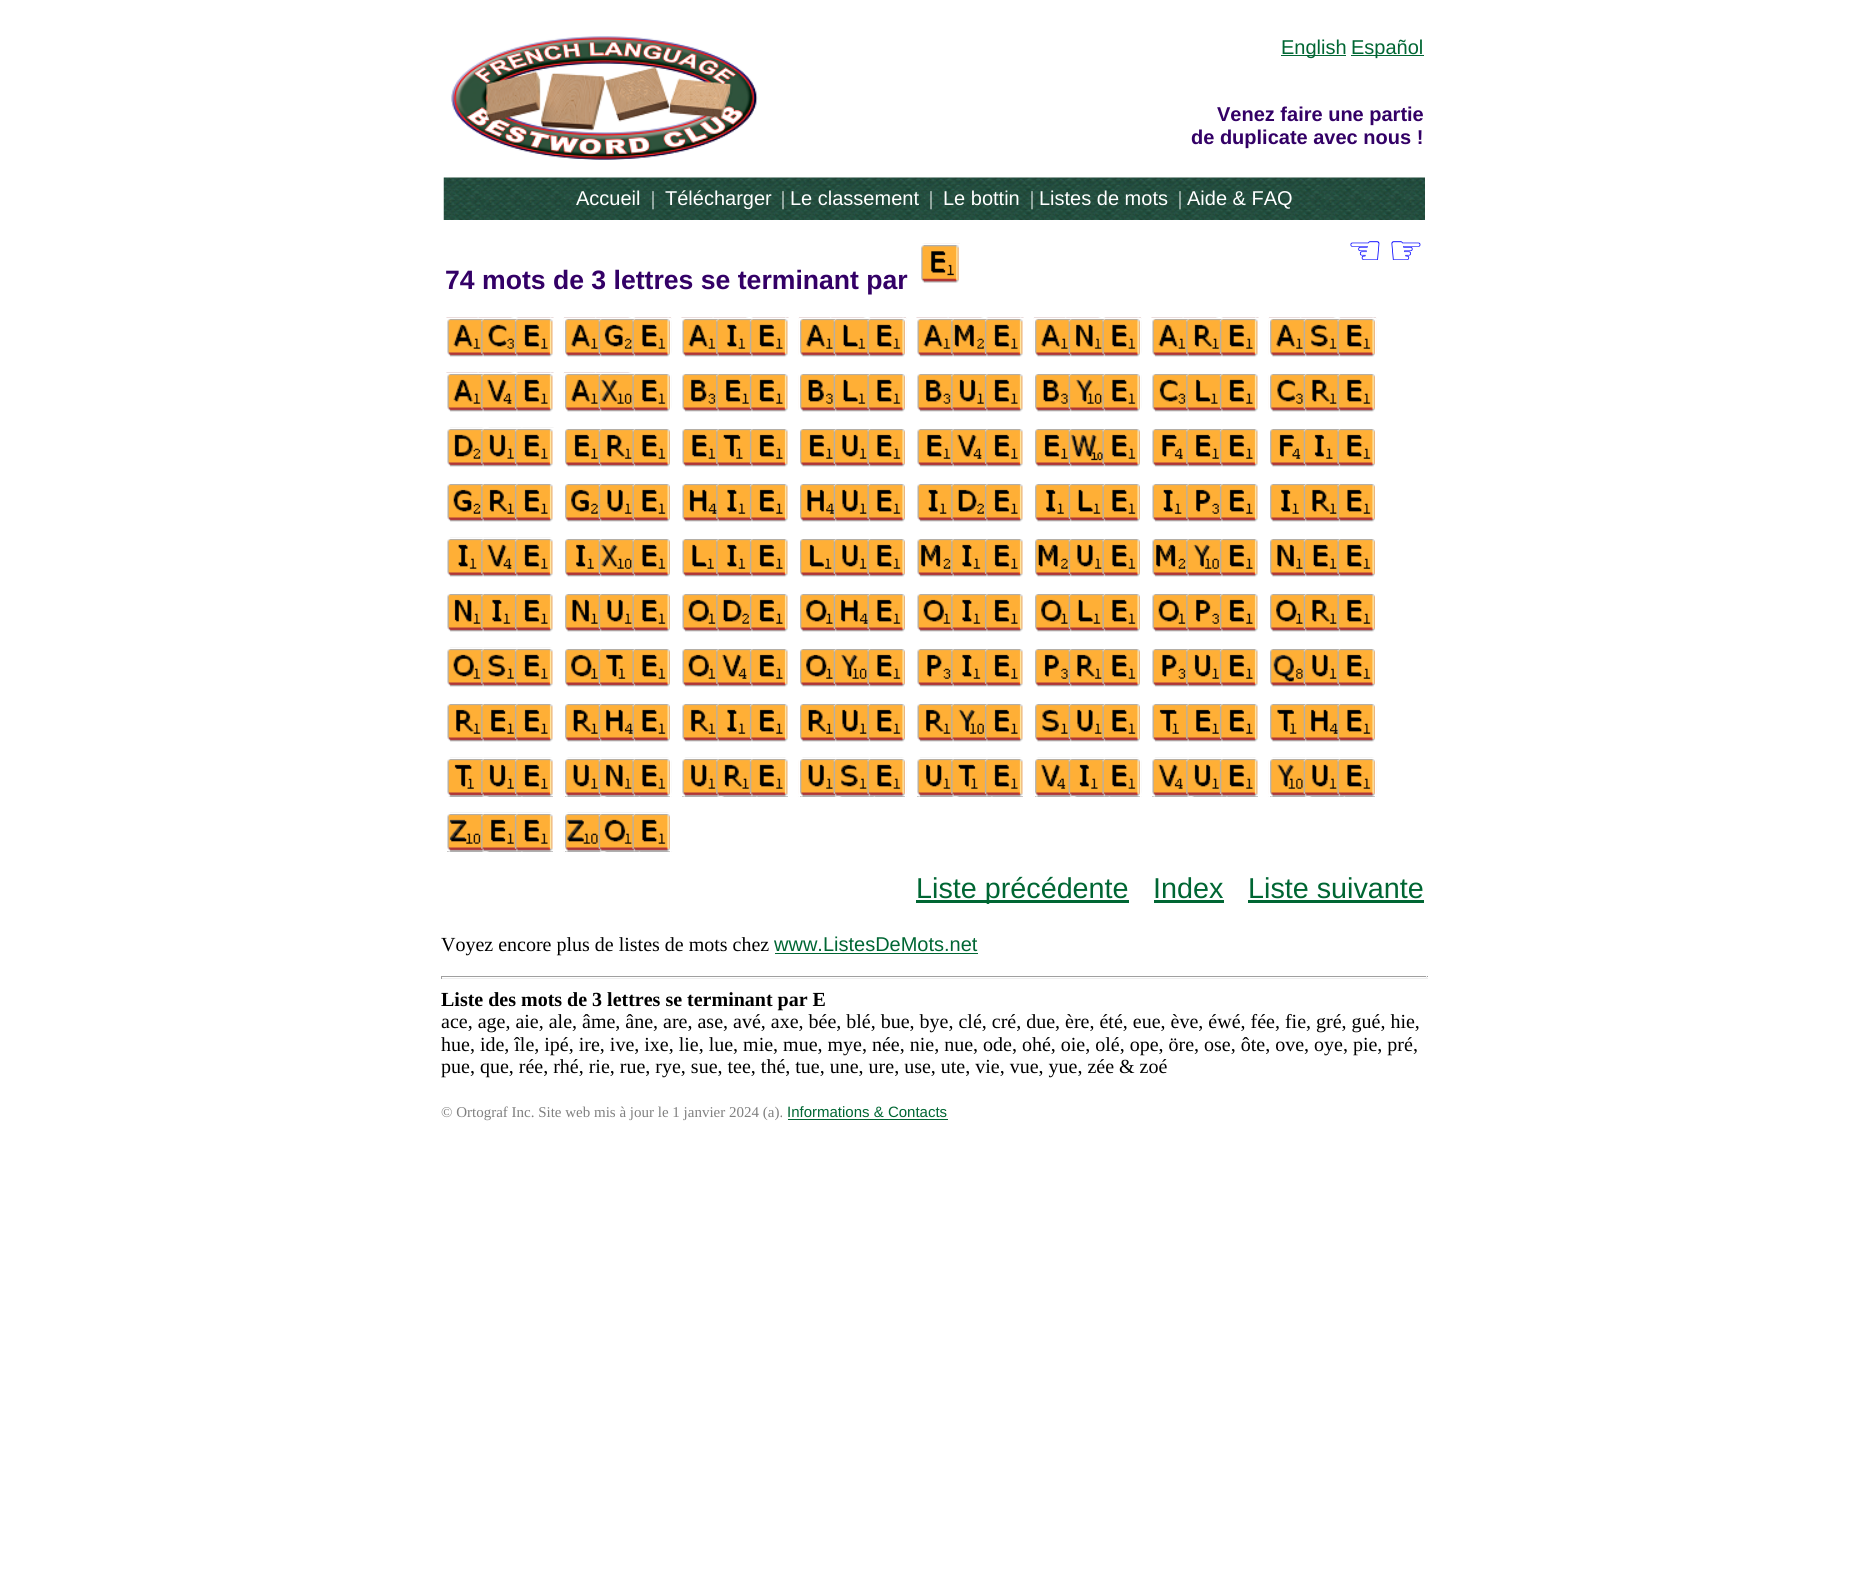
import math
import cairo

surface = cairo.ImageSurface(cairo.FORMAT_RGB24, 1868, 1591)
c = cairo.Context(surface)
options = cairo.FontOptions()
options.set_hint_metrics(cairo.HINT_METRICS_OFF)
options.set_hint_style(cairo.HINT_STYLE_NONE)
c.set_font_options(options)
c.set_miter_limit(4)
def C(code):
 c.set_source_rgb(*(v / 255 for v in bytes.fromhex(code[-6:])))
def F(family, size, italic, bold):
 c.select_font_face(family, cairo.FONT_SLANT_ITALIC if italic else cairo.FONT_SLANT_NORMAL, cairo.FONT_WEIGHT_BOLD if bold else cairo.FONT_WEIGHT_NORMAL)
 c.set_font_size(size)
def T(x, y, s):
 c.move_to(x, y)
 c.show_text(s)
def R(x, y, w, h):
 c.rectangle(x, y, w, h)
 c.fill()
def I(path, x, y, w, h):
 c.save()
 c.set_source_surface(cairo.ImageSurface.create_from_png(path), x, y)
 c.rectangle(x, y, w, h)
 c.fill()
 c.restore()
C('ffffff')
c.paint()
I('1.png',451,36,307,124)
C('006633')
R(1281,55,65,1)
F('Liberation Sans',20,0,0)
T(1281,54,'English')
R(1351,55,73,1)
T(1351,54,'Español')
F('Liberation Sans',20,0,1)
C('330066')
T(1217,121,'Venez faire une partie')
T(1191,144,'de duplicate avec nous !')
I('2.png',443,177,982,43)
F('Liberation Sans',20,0,0)
C('ffffff')
T(576,205,'Accueil')
F('Liberation Serif',20,0,0)
T(651,205,'|')
F('Liberation Sans',20,0,0)
T(665,205,'Télécharger')
F('Liberation Serif',20,0,0)
T(781,205,'|')
F('Liberation Sans',20,0,0)
T(790,205,'Le classement')
F('Liberation Serif',20,0,0)
T(929,205,'|')
F('Liberation Sans',20,0,0)
T(943,205,'Le bottin')
F('Liberation Serif',20,0,0)
T(1030,205,'|')
F('Liberation Sans',20,0,0)
T(1039,205,'Listes de mots')
F('Liberation Serif',20,0,0)
T(1178,205,'|')
F('Liberation Sans',20,0,0)
T(1187,205,'Aide & FAQ')
F('DejaVu Sans',40,0,0)
C('0000ff')
T(1347,264,'☜')
T(1388,264,'☞')
F('Liberation Sans',26.6,0,1)
C('330066')
T(445,289,'74 mots de 3 lettres se terminant par')
I('3.png',920,243,40,40)
c.rectangle(920.5,244.5,39,39)
C('ffffff')
c.set_line_width(1)
c.stroke()
I('4.png',446,317,108,40)
c.rectangle(446.5,318.5,107,39)
c.stroke()
I('5.png',563,317,109,40)
c.rectangle(564.5,318.5,106,39)
c.stroke()
I('6.png',681,317,108,40)
c.rectangle(681.5,318.5,107,39)
c.stroke()
I('7.png',798,317,109,40)
c.rectangle(799.5,318.5,106,39)
c.stroke()
I('8.png',916,317,108,40)
c.rectangle(916.5,318.5,107,39)
c.stroke()
I('9.png',1033,317,109,40)
c.rectangle(1034.5,318.5,106,39)
c.stroke()
I('10.png',1151,317,108,40)
c.rectangle(1151.5,318.5,107,39)
c.stroke()
I('11.png',1268,317,109,40)
c.rectangle(1269.5,318.5,106,39)
c.stroke()
I('12.png',446,372,108,40)
c.rectangle(446.5,373.5,107,39)
c.stroke()
I('13.png',563,372,109,40)
c.rectangle(564.5,373.5,106,39)
c.stroke()
I('14.png',682,374,106,38)
I('15.png',798,373,109,39)
c.rectangle(799.5,373.5,106,39)
c.stroke()
I('16.png',917,374,106,38)
I('17.png',1033,373,109,39)
c.rectangle(1034.5,373.5,106,39)
c.stroke()
I('18.png',1152,374,106,38)
I('19.png',1268,373,107,39)
c.rectangle(1269.5,373.5,106,39)
c.stroke()
I('20.png',447,427,107,40)
c.rectangle(446.5,428.5,107,39)
c.stroke()
I('21.png',565,429,105,38)
I('22.png',682,429,106,38)
I('23.png',800,429,105,38)
I('24.png',917,429,106,38)
I('25.png',1035,429,105,38)
I('26.png',1152,429,106,38)
I('27.png',1270,429,105,38)
I('28.png',447,484,106,38)
I('29.png',565,484,105,38)
I('30.png',682,484,106,38)
I('31.png',800,484,105,38)
I('32.png',917,484,106,38)
I('33.png',1035,484,105,38)
I('34.png',1152,484,106,38)
I('35.png',1270,484,105,38)
I('36.png',447,537,107,40)
c.rectangle(446.5,538.5,107,39)
c.stroke()
I('37.png',565,539,105,38)
I('38.png',682,539,106,38)
I('39.png',800,539,105,38)
I('40.png',917,539,106,38)
I('41.png',1035,539,105,38)
I('42.png',1152,539,106,38)
I('43.png',1270,539,105,38)
I('44.png',447,594,106,38)
I('45.png',565,594,105,38)
I('46.png',682,594,106,38)
I('47.png',800,594,105,38)
I('48.png',917,594,106,38)
I('49.png',1035,594,105,38)
I('50.png',1152,594,106,38)
I('51.png',1270,594,105,38)
I('52.png',447,647,107,40)
c.rectangle(446.5,648.5,107,39)
c.stroke()
I('53.png',565,649,105,38)
I('54.png',682,649,106,38)
I('55.png',800,649,105,38)
I('56.png',917,649,106,38)
I('57.png',1035,649,105,38)
I('58.png',1152,649,106,38)
I('59.png',1270,649,105,38)
I('60.png',447,704,106,38)
I('61.png',565,704,105,38)
I('62.png',682,704,106,38)
I('63.png',800,704,105,38)
I('64.png',917,704,106,38)
I('65.png',1035,704,105,38)
I('66.png',1152,704,106,38)
I('67.png',1270,704,105,38)
I('68.png',447,757,107,40)
c.rectangle(446.5,758.5,107,39)
c.stroke()
I('69.png',563,757,109,40)
c.rectangle(564.5,758.5,106,39)
c.stroke()
I('70.png',681,757,108,40)
c.rectangle(681.5,758.5,107,39)
c.stroke()
I('71.png',798,757,109,40)
c.rectangle(799.5,758.5,106,39)
c.stroke()
I('72.png',916,757,108,40)
c.rectangle(916.5,758.5,107,39)
c.stroke()
I('73.png',1033,757,109,40)
c.rectangle(1034.5,758.5,106,39)
c.stroke()
I('74.png',1151,757,108,40)
c.rectangle(1151.5,758.5,107,39)
c.stroke()
I('75.png',1268,757,109,40)
c.rectangle(1269.5,758.5,106,39)
c.stroke()
I('76.png',446,812,108,40)
c.rectangle(446.5,813.5,107,39)
c.stroke()
I('77.png',563,812,109,40)
c.rectangle(564.5,813.5,106,39)
c.stroke()
C('006633')
R(916,900,213,3)
F('Liberation Sans',28.75,0,0)
T(916,898,'Liste précédente')
T(1153,898,'Index')
R(1154,900,70,3)
T(1248,898,'Liste suivante')
R(1248,900,176,3)
F('Liberation Serif',20,0,0)
C('000000')
T(441,951,'Voyez encore plus de listes de mots chez')
F('Liberation Sans',20,0,0)
C('006633')
T(774,951,'www.ListesDeMots.net')
R(775,953,203,1)
C('9f9f9f')
R(441,976,987,1)
C('eeeeee')
R(1426,976,1,3)
R(441,978,987,1)
C('9f9f9f')
R(441,976,1,3)
F('Liberation Serif',20,0,1)
C('000000')
T(441,1006,'Liste des mots de 3 lettres se terminant par E')
F('Liberation Serif',20,0,0)
T(441,1028,'ace, age, aie, ale, âme, âne, are, ase, avé, axe, bée, blé, bue, bye, clé, cré, due, ère, été, eue, ève, éwé, fée, fie, gré, gué, hie,')
T(441,1051,'hue, ide, île, ipé, ire, ive, ixe, lie, lue, mie, mue, mye, née, nie, nue, ode, ohé, oie, olé, ope, öre, ose, ôte, ove, oye, pie, pré,')
T(441,1073,'pue, que, rée, rhé, rie, rue, rye, sue, tee, thé, tue, une, ure, use, ute, vie, vue, yue, zée & zoé')
F('Liberation Serif',15,0,0)
C('808080')
T(441,1117,'© Ortograf Inc. Site web mis à jour le 1 janvier 2024 (a).')
F('Liberation Sans',15,0,0)
C('006633')
T(787,1117,'Informations & Contacts')
R(788,1119,160,1)
surface.write_to_png('o.png')
